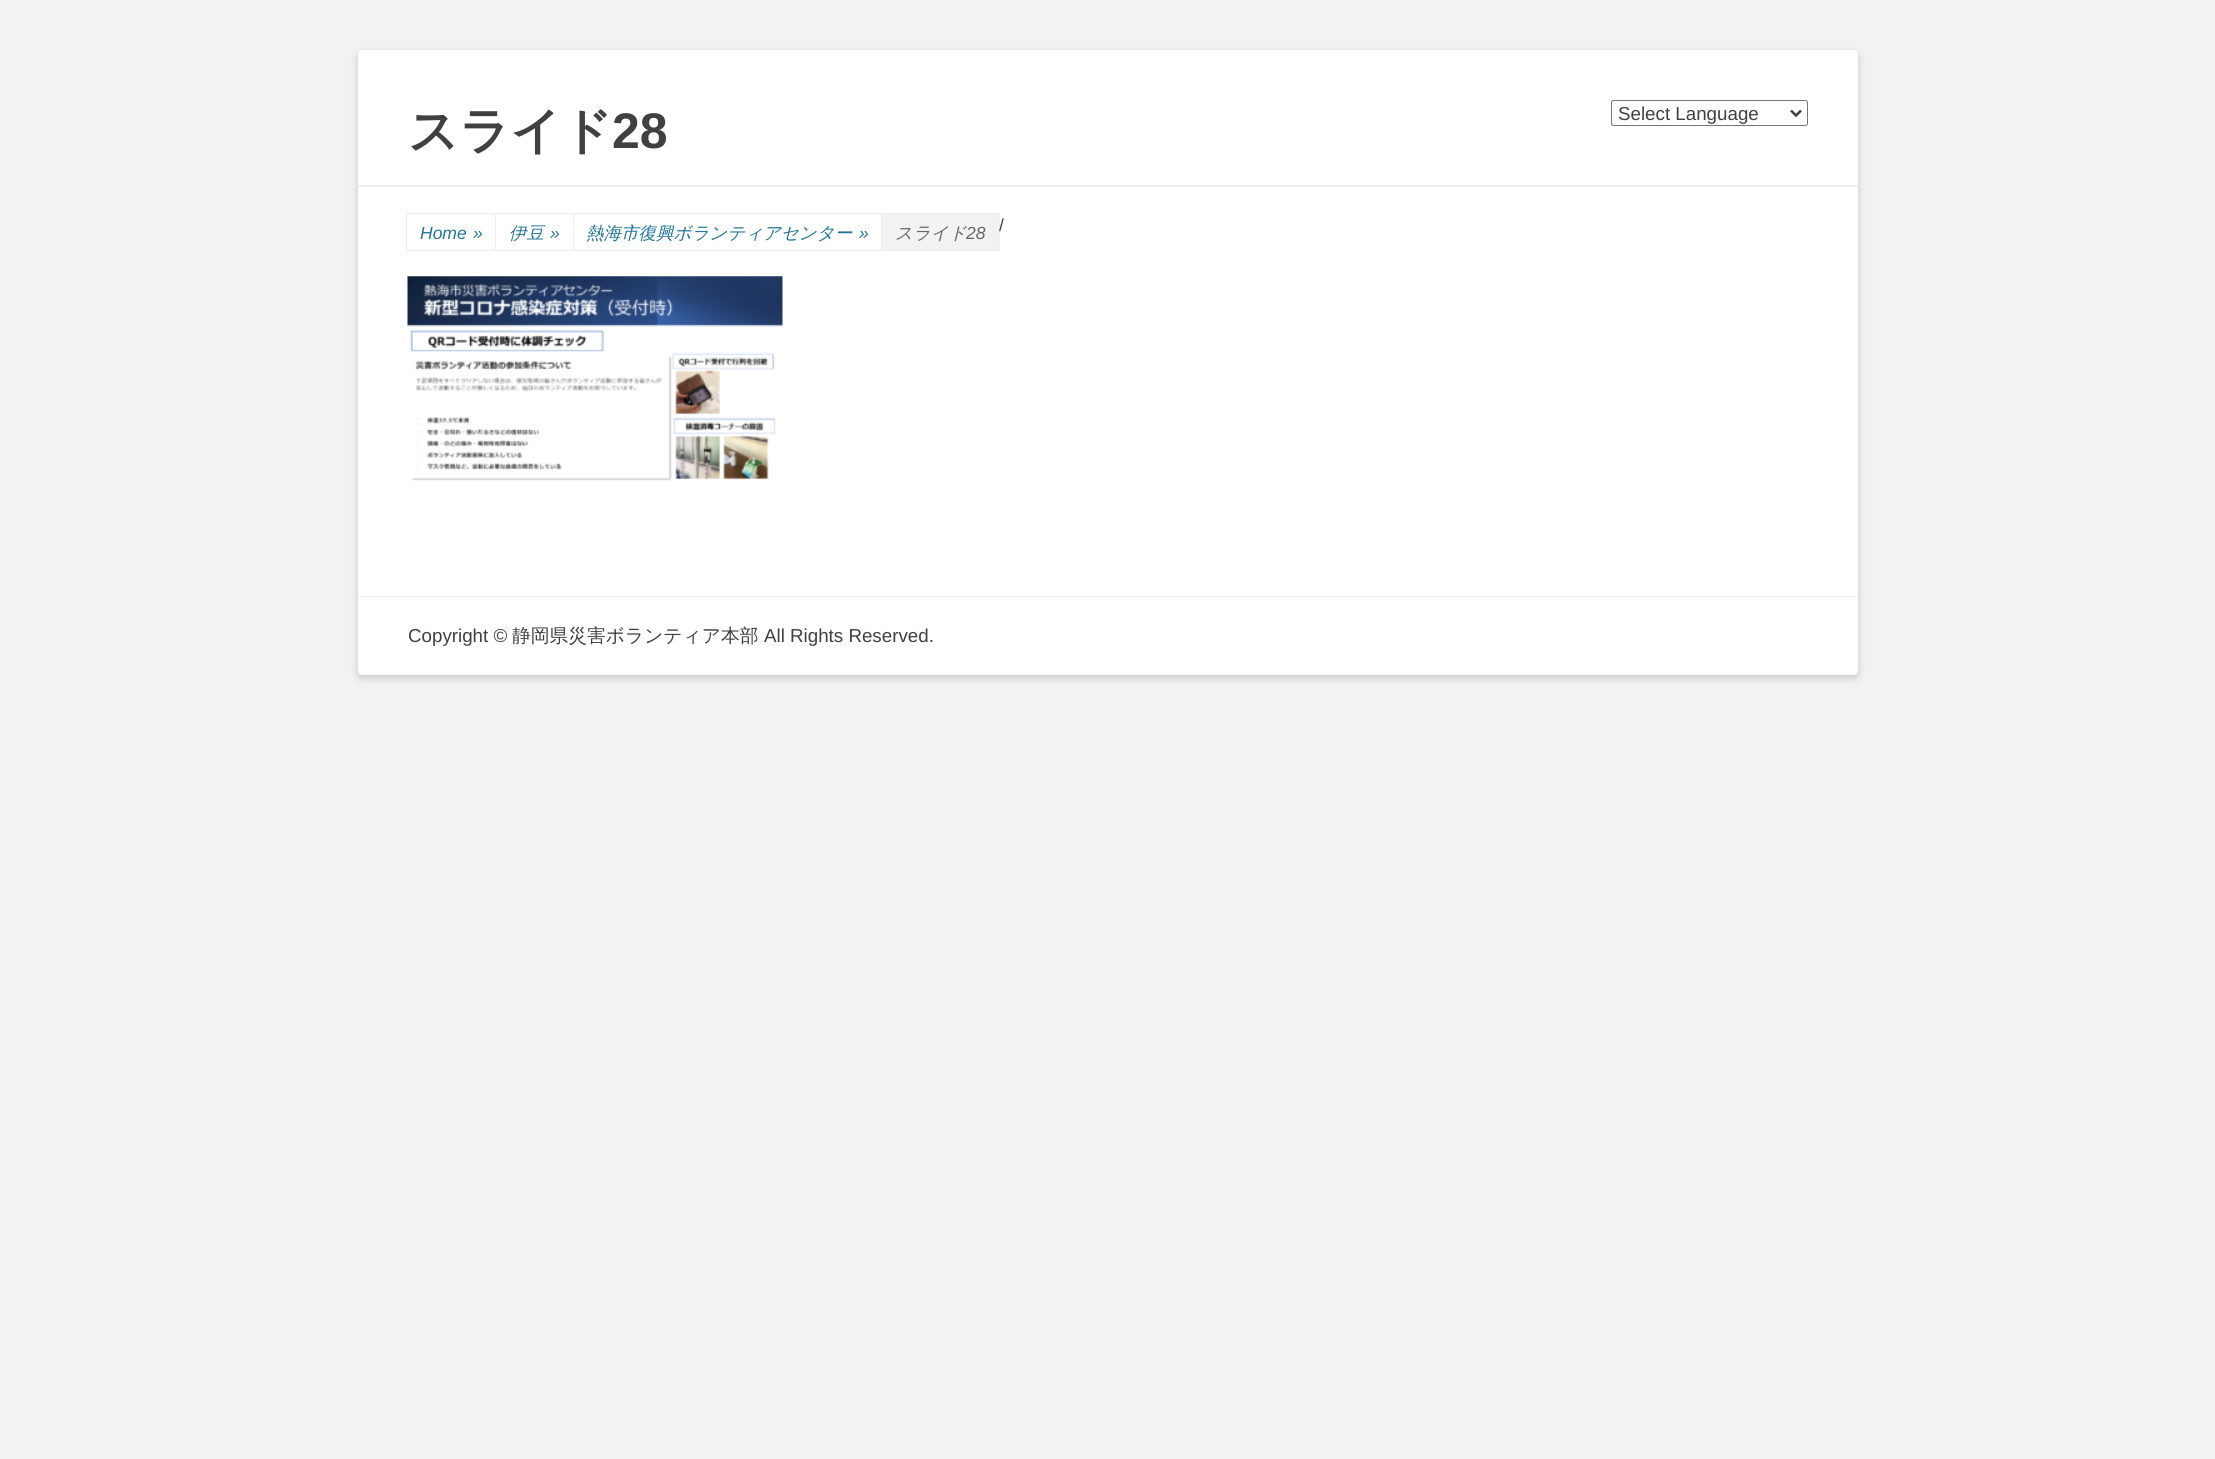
import math
import cairo

surface = cairo.ImageSurface(cairo.FORMAT_RGB24, 2215, 1459)
c = cairo.Context(surface)
options = cairo.FontOptions()
options.set_hint_metrics(cairo.HINT_METRICS_OFF)
options.set_hint_style(cairo.HINT_STYLE_NONE)
c.set_font_options(options)
c.set_miter_limit(4)
def C(code):
 c.set_source_rgb(*(v / 255 for v in bytes.fromhex(code[-6:])))
def F(family, size, italic, bold):
 c.select_font_face(family, cairo.FONT_SLANT_ITALIC if italic else cairo.FONT_SLANT_NORMAL, cairo.FONT_WEIGHT_BOLD if bold else cairo.FONT_WEIGHT_NORMAL)
 c.set_font_size(size)
def T(x, y, s):
 c.move_to(x, y)
 c.show_text(s)
def R(x, y, w, h):
 c.rectangle(x, y, w, h)
 c.fill()
def Q(x, y, w, h, r):
 c.new_sub_path()
 for i, (u, v) in enumerate([(x + w - r, y + h - r), (x + r, y + h - r), (x + r, y + r), (x + w - r, y + r)]):
  c.arc(u, v, r, i * math.pi / 2, (i + 1) * math.pi / 2)
 c.close_path()
def S(x, y, w, h, r, blur, alpha):
 c.push_group_with_content(cairo.CONTENT_ALPHA)
 c.set_operator(cairo.OPERATOR_SOURCE)
 for i in range(15, -16, -2):
  e = blur * i / 6
  if min(w, h) + 2 * e > 0:
   c.set_source_rgba(0, 0, 0, alpha * math.erfc((i - 1) / 8.5) / 2)
   Q(x - e, y - e, w + 2 * e, h + 2 * e, max(0, min(r + e + blur * .6, min(w, h) / 2 + e)))
   c.fill()
 c.mask(c.pop_group())
def I(path, x, y, w, h):
 c.save()
 c.set_source_surface(cairo.ImageSurface.create_from_png(path), x, y)
 c.rectangle(x, y, w, h)
 c.fill()
 c.restore()
C('f2f2f2')
c.paint()
C('646464')
S(358,53,1500,625,4,4,.3)
C('ffffff')
Q(358,50,1500,625,4)
c.fill()
F('WenQuanYi Zen Hei',50,0,1)
C('404040')
T(408,148,'スライド')
F('Liberation Sans',50,0,1)
T(612,148,'28')
Q(1611.5,100.5,196,25,2)
C('767676')
c.set_line_width(1)
c.stroke()
c.new_path()
c.move_to(1791,110.5)
c.line_to(1796,115.5)
c.line_to(1801,110.5)
C('404040')
c.set_line_width(2.5)
c.stroke()
F('Liberation Sans',18.75,0,0)
T(1618,120,'Select Language')
C('eeeeee')
R(358,185,1500,2)
c.rectangle(406.5,213.5,89,37)
c.set_line_width(1)
c.stroke()
F('Liberation Sans',17.5,1,0)
C('21759b')
T(420,239,'Home')
T(473,239,'»')
c.rectangle(495.5,213.5,78,37)
C('eeeeee')
c.stroke()
F('WenQuanYi Zen Hei Medium',17.5,1,0)
C('21759b')
T(509,239,'伊豆')
F('Liberation Sans',17.5,1,0)
T(550,239,'»')
c.rectangle(573.5,213.5,309,37)
C('eeeeee')
c.stroke()
F('WenQuanYi Zen Hei Medium',17.5,1,0)
C('21759b')
T(586,239,'熱海市復興ボランティアセンター')
F('Liberation Sans',17.5,1,0)
T(859,239,'»')
C('f2f2f2')
c.rectangle(881.5,213.5,118,37)
c.fill_preserve()
C('eeeeee')
c.stroke()
F('WenQuanYi Zen Hei Medium',17.5,1,0)
C('666666')
T(895,239,'スライド')
F('Liberation Sans',17.5,1,0)
T(966,239,'28')
F('Liberation Sans',17.5,0,0)
C('404040')
T(999,231,'/')
I('1.png',407,276,376,205)
C('eeeeee')
R(358,596,1500,1)
F('Liberation Sans',18.75,0,0)
C('404040')
T(408,642,'Copyright ©')
F('WenQuanYi Zen Hei Medium',18.75,0,0)
T(512,642,'静岡県災害ボランティア本部')
F('Liberation Sans',18.75,0,0)
T(764,642,'All Rights Reserved.')
surface.write_to_png('o.png')
